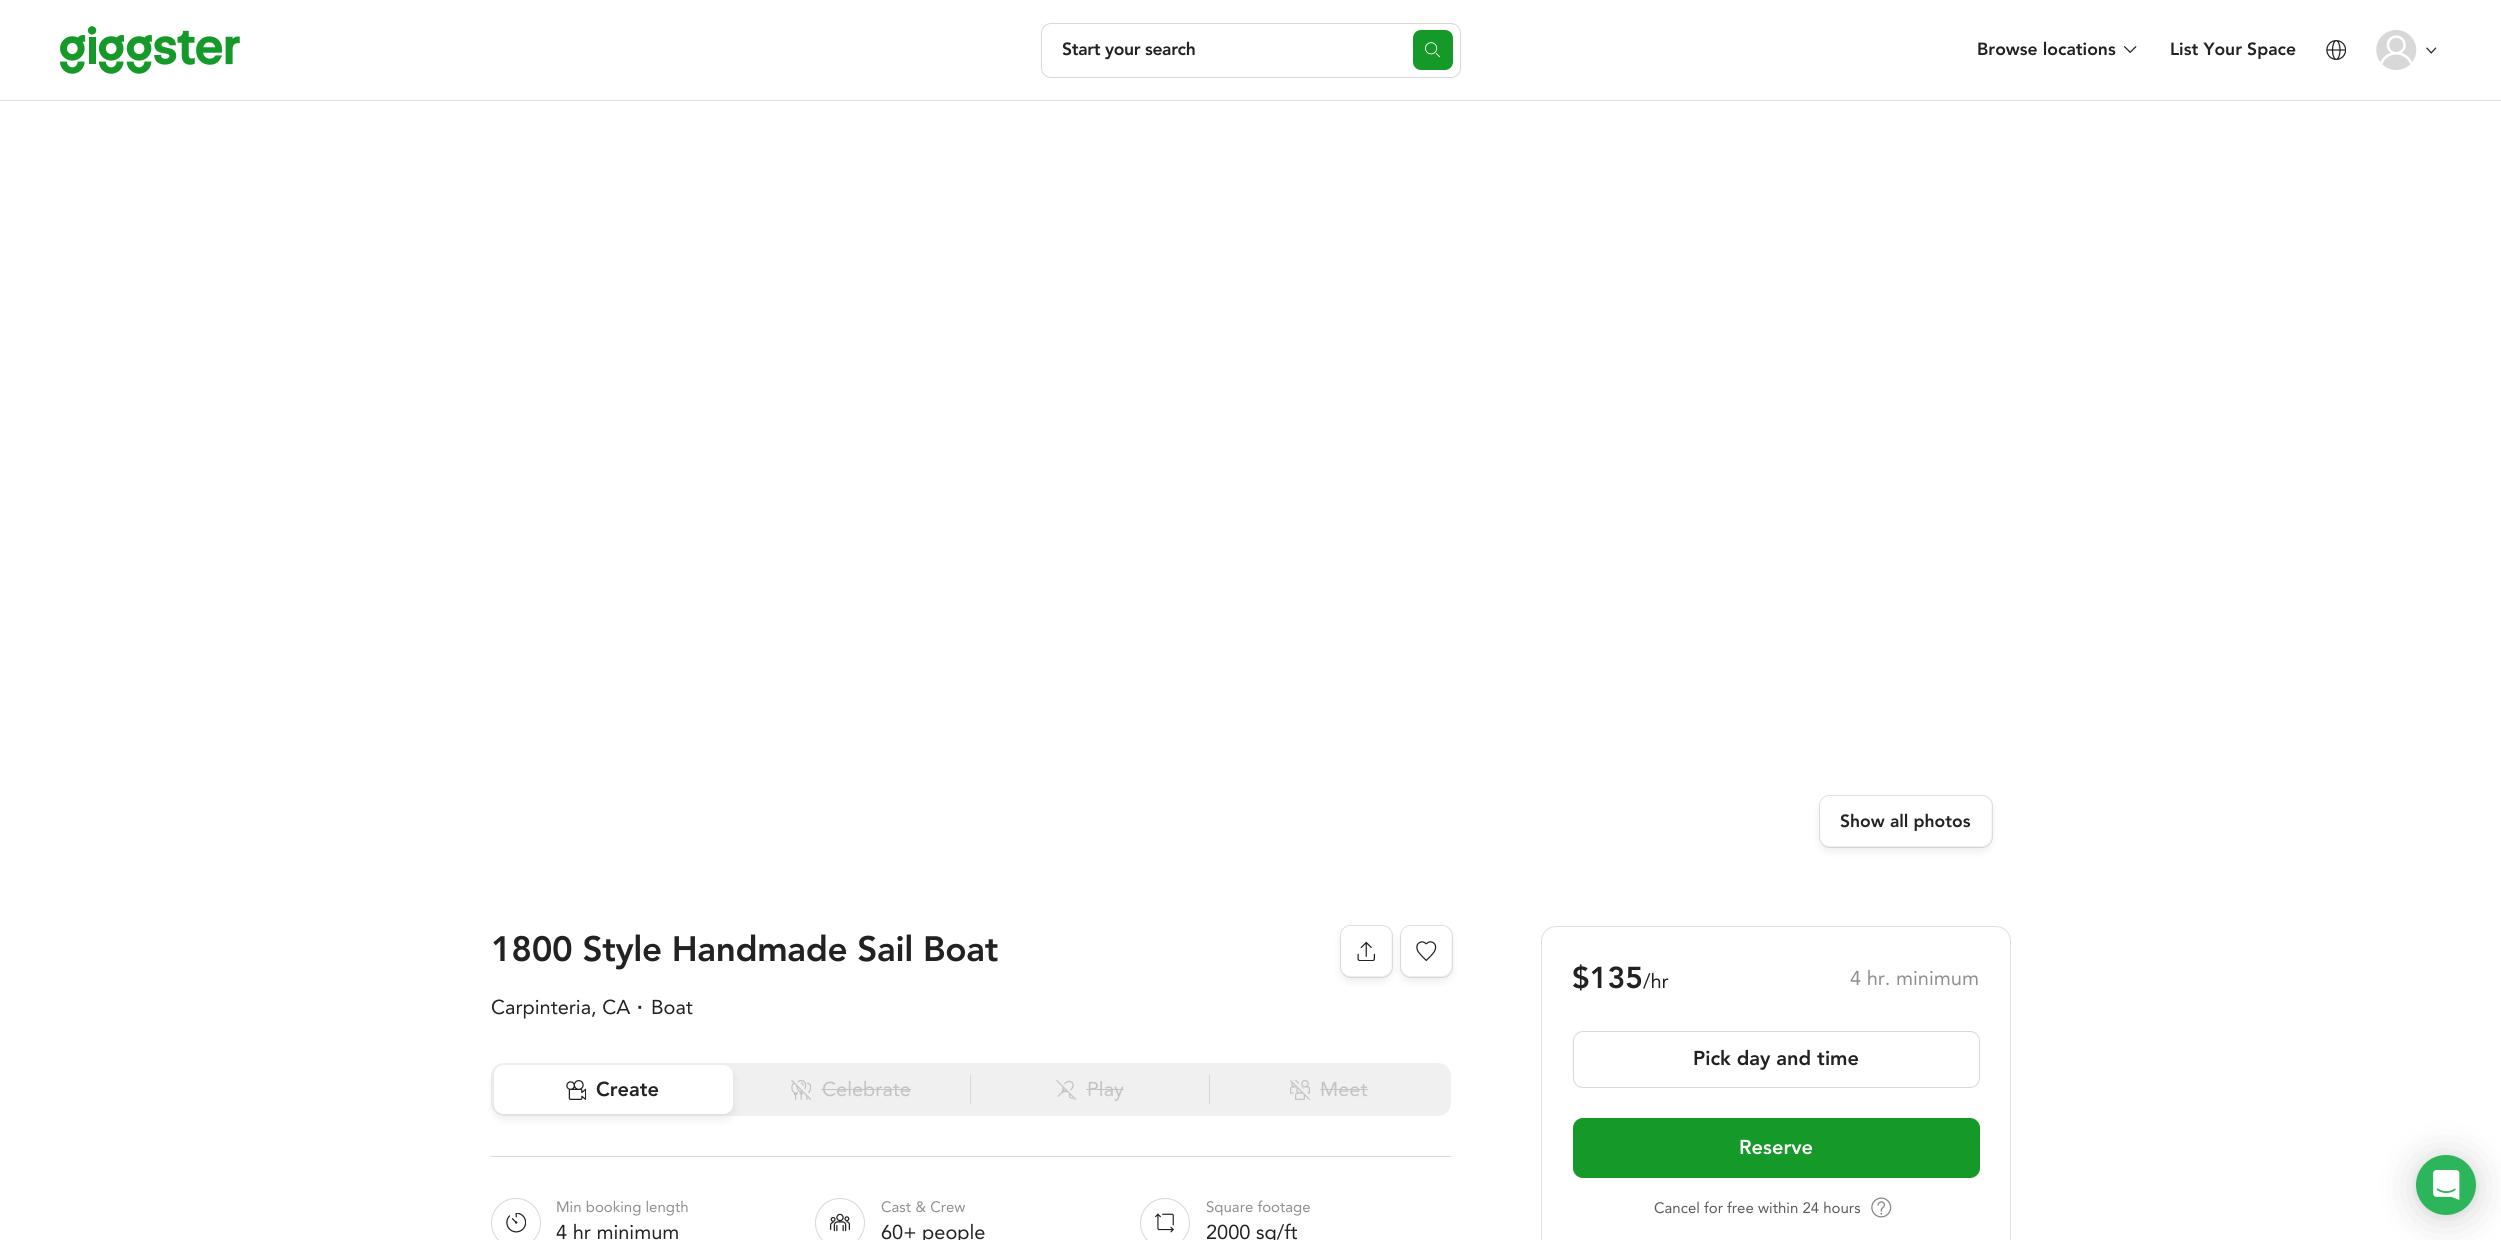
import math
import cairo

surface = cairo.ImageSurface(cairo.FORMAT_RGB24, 2501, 1240)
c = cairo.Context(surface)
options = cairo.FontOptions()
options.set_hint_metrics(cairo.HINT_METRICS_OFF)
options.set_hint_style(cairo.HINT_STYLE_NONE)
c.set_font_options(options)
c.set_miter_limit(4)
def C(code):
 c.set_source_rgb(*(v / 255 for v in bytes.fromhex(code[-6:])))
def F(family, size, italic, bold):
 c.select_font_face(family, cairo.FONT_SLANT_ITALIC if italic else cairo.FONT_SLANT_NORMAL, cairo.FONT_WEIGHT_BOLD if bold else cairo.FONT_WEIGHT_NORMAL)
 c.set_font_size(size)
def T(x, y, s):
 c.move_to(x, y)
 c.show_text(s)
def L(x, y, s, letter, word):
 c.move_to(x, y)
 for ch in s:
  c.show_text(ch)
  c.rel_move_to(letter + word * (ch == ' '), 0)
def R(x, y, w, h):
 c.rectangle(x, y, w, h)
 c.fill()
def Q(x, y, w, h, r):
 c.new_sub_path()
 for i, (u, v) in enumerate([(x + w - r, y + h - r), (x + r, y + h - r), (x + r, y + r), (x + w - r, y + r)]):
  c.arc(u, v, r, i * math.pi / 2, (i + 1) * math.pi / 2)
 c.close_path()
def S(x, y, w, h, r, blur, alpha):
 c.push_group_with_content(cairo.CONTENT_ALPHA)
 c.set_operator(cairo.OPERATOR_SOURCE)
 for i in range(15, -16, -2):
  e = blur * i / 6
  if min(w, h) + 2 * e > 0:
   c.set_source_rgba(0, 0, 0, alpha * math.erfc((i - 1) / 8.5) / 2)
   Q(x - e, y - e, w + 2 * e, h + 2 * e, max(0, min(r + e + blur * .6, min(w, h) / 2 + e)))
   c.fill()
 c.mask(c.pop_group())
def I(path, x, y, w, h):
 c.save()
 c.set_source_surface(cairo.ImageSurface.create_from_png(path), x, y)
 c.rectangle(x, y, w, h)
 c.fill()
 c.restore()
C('ffffff')
c.paint()
C('e0e0e0')
R(0,100,2501,1)
I('1.png',60,26,180,48)
Q(1041.5,23.5,419,54,9.5)
C('d8d8d8')
c.set_line_width(1)
c.stroke()
c.save()
c.rectangle(1063,38,332,25)
c.clip()
F('Avenir Black',17.5,0,0)
C('222222')
L(1062,55,'Start your search',-.35,0)
c.restore()
C('159929')
Q(1413,30,40,40,8)
c.fill()
I('2.png',1425,42,15,16)
F('Avenir Black',17.5,0,0)
C('222222')
T(1977,55,'Browse locations')
I('3.png',2124,46,13,7)
T(2170,55,'List Your Space')
I('4.png',2326,40,20,20)
I('5.png',2376,30,41,40)
I('6.png',2426,47,11,7)
C('000000')
S(1820,801,171,50,10,5,.08)
Q(1819.5,795.5,173,52,10.5)
c.set_source_rgba(0,0,0,0.12)
c.stroke()
C('ffffff')
Q(1820,796,171,50,10)
c.fill()
C('222222')
T(1840,827,'Show all photos')
F('Avenir Black',35,0,0)
L(491,961,'1800 Style Handmade Sail Boat',-.35,0)
C('000000')
S(1341,931,50,50,10,5,.08)
Q(1340.5,925.5,52,52,10.5)
c.set_source_rgba(0,0,0,0.12)
c.stroke()
C('ffffff')
Q(1341,926,50,50,10)
c.fill()
I('7.png',1357,941,18,20)
C('000000')
S(1401,931,50,50,10,5,.08)
Q(1400.5,925.5,52,52,10.5)
c.set_source_rgba(0,0,0,0.12)
c.stroke()
C('ffffff')
Q(1401,926,50,50,10)
c.fill()
I('8.png',1416,941,21,21)
F('Avenir',20,0,0)
C('222222')
T(491,1014,'Carpinteria, CA')
F('Liberation Sans',20,0,1)
T(637,1014,'·')
F('Avenir',20,0,0)
T(651,1014,'Boat')
C('f0f0f0')
Q(491,1063,960,53,13)
c.fill()
C('000000')
S(494,1070,239,49,10,5,.08)
C('ffffff')
Q(494,1065,239,49,10)
c.fill()
I('9.png',566,1080,20,20)
F('Avenir Black',20,0,0)
C('222222')
T(596,1096,'Create')
I('10.png',791,1080,20,20)
F('Avenir',20,0,0)
C('c3c3c3')
T(822,1096,'Celebrate')
R(821,1089,90,1)
C('d8d8d8')
R(970,1075,1,29)
I('11.png',1056,1080,20,20)
C('c3c3c3')
T(1087,1096,'Play')
R(1086,1089,38,1)
C('d8d8d8')
R(1209,1075,1,29)
I('12.png',1290,1080,20,20)
C('c3c3c3')
T(1320,1096,'Meet')
R(1320,1089,48,1)
C('d8d8d8')
R(491,1156,960,1)
c.new_path()
c.arc(516,1223,24.5,0,2 * math.pi)
c.stroke()
I('13.png',506,1213,20,20)
F('Avenir',15,0,0)
C('8f8f8f')
T(556,1212,'Min booking length')
F('Avenir',20,0,0)
C('222222')
T(556,1239,'4 hr minimum')
c.new_path()
c.arc(840,1223,24.5,0,2 * math.pi)
C('d8d8d8')
c.stroke()
I('14.png',830,1213,20,19)
F('Avenir',15,0,0)
C('8f8f8f')
T(881,1212,'Cast & Crew')
F('Avenir',20,0,0)
C('222222')
T(881,1239,'60+ people')
c.new_path()
c.arc(1165,1223,24.5,0,2 * math.pi)
C('d8d8d8')
c.stroke()
I('15.png',1155,1213,19,20)
F('Avenir',15,0,0)
C('8f8f8f')
T(1206,1212,'Square footage')
F('Avenir',20,0,0)
C('222222')
T(1206,1239,'2000 sq/ft')
Q(1541.5,926.5,469,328,14.5)
C('e0e0e0')
c.stroke()
F('Avenir Black',30,0,0)
C('222222')
T(1572,988,'$135')
F('Avenir',20,0,0)
T(1643,988,'/hr')
C('8f8f8f')
T(1850,985,'4 hr. minimum')
Q(1573.5,1031.5,406,56,9.5)
C('d8d8d8')
c.stroke()
F('Avenir Black',20,0,0)
C('222222')
T(1693,1065,'Pick day and time')
C('159929')
Q(1573.5,1118.5,406,59,9.5)
c.fill_preserve()
c.stroke()
C('ffffff')
T(1739,1154,'Reserve')
F('Avenir',15,0,0)
C('5a5a5a')
T(1654,1213,'Cancel for free within 24 hours')
I('16.png',1871,1197,21,21)
C('000000')
S(2416,1158,60,60,30,20,.16)
S(2416,1156,60,60,30,4,.06)
C('2db55b')
c.arc(2446,1185,30,0,2 * math.pi)
c.fill()
I('17.png',2433,1170,27,30)
surface.write_to_png('o.png')
